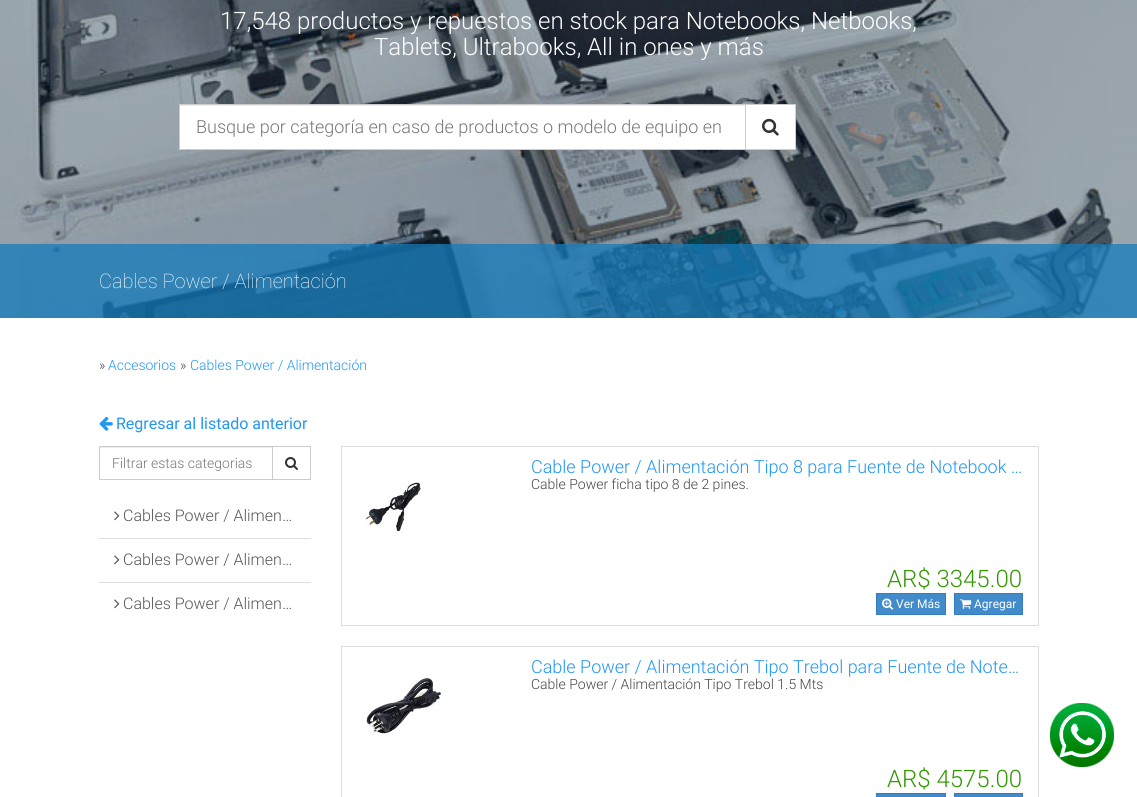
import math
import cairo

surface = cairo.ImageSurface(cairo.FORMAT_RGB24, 1137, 797)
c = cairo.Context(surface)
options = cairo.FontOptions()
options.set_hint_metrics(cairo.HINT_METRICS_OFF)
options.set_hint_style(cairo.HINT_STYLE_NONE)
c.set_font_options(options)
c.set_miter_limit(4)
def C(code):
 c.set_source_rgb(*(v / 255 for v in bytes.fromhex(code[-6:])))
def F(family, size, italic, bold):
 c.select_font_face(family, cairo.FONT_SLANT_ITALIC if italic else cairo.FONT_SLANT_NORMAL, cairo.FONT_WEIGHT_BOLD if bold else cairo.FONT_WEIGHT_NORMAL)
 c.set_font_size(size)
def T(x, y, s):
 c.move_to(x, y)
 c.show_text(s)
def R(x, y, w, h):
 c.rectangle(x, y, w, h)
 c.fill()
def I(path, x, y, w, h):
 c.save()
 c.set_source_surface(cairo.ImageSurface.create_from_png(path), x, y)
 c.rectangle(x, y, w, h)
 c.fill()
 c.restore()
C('ffffff')
c.paint()
I('1.png',0,0,1137,318)
F('Roboto Light',24,0,0)
C('ffffff')
T(220,29,'17,548 productos y repuestos en stock para Notebooks, Netbooks,')
T(374,55,'Tablets, Ultrabooks, All in ones y más')
F('Roboto Light',16,0,0)
C('333333')
T(99,77,'>')
C('ffffff')
R(180,106,565,43)
C('ececec')
R(180,105,565,1)
C('ffffff')
c.rectangle(745.5,104.5,50,45)
c.fill_preserve()
C('cccccc')
c.set_line_width(1)
c.stroke()
c.rectangle(179.5,104.5,566,45)
c.stroke()
F('Roboto Light',18,0,0)
C('777777')
T(196,133,'Busque por categoría en caso de productos o modelo de equipo en')
I('2.png',762,118,17,18)
c.set_source_rgba(0.082,0.482,0.733,0.75)
R(0,244,1137,74)
F('Roboto Thin',20,0,0)
C('ffffff')
T(99,288,'Cables Power / Alimentación')
F('Roboto Light',14,0,0)
C('454545')
T(99,370,'»')
C('2196f3')
T(108,370,'Accesorios')
C('454545')
T(180,370,'»')
C('2196f3')
T(190,370,'Cables Power / Alimentación')
I('3.png',99,416,14,15)
F('Roboto',16,0,0)
T(116,429,'Regresar al listado anterior')
C('ececec')
R(100,447,172,1)
c.rectangle(272.5,446.5,38,33)
C('cccccc')
c.stroke()
c.rectangle(99.5,446.5,173,33)
c.stroke()
F('Roboto Light',14,0,0)
C('777777')
T(112,468,'Filtrar estas categorias')
I('4.png',285,457,13,13)
I('5.png',114,511,6,10)
F('Roboto Light',16,0,0)
C('555555')
T(123,521,'Cables Power / Alimen…')
C('dddddd')
R(99,538,212,1)
I('5.png',114,555,6,10)
C('555555')
T(123,565,'Cables Power / Alimen…')
C('dddddd')
R(99,582,212,1)
I('5.png',114,599,6,10)
C('555555')
T(123,609,'Cables Power / Alimen…')
c.rectangle(341.5,446.5,697,179)
C('dddddd')
c.stroke()
F('Roboto Light',18,0,0)
C('2196f3')
T(531,473,'Cable Power / Alimentación Tipo 8 para Fuente de Notebook …')
F('Roboto Light',14,0,0)
C('454545')
T(531,489,'Cable Power ficha tipo 8 de 2 pines.')
I('6.png',365,482,57,50)
F('Roboto Light',24,0,0)
C('339900')
T(887,587,'AR$ 3345.00')
C('428bca')
c.rectangle(876.5,593.5,69,21)
c.fill_preserve()
C('357ebd')
c.stroke()
I('7.png',882,598,12,12)
F('Roboto',12,0,0)
C('ffffff')
T(896,608,'Ver Más')
C('428bca')
c.rectangle(954.5,593.5,68,21)
c.fill_preserve()
C('357ebd')
c.stroke()
I('8.png',960,599,12,10)
C('ffffff')
T(974,608,'Agregar')
c.rectangle(341.5,646.5,697,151)
C('dddddd')
c.stroke()
I('9.png',366,677,75,59)
F('Roboto Light',18,0,0)
C('2196f3')
T(531,673,'Cable Power / Alimentación Tipo Trebol para Fuente de Note…')
F('Roboto Light',14,0,0)
C('454545')
T(531,689,'Cable Power / Alimentación Tipo Trebol 1.5 Mts')
F('Roboto Light',24,0,0)
C('339900')
T(887,787,'AR$ 4575.00')
C('428bca')
c.rectangle(876.5,793.5,69,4)
c.fill_preserve()
C('357ebd')
c.stroke()
C('428bca')
c.rectangle(954.5,793.5,68,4)
c.fill_preserve()
C('357ebd')
c.stroke()
I('10.png',1050,703,64,64)
surface.write_to_png('o.png')
